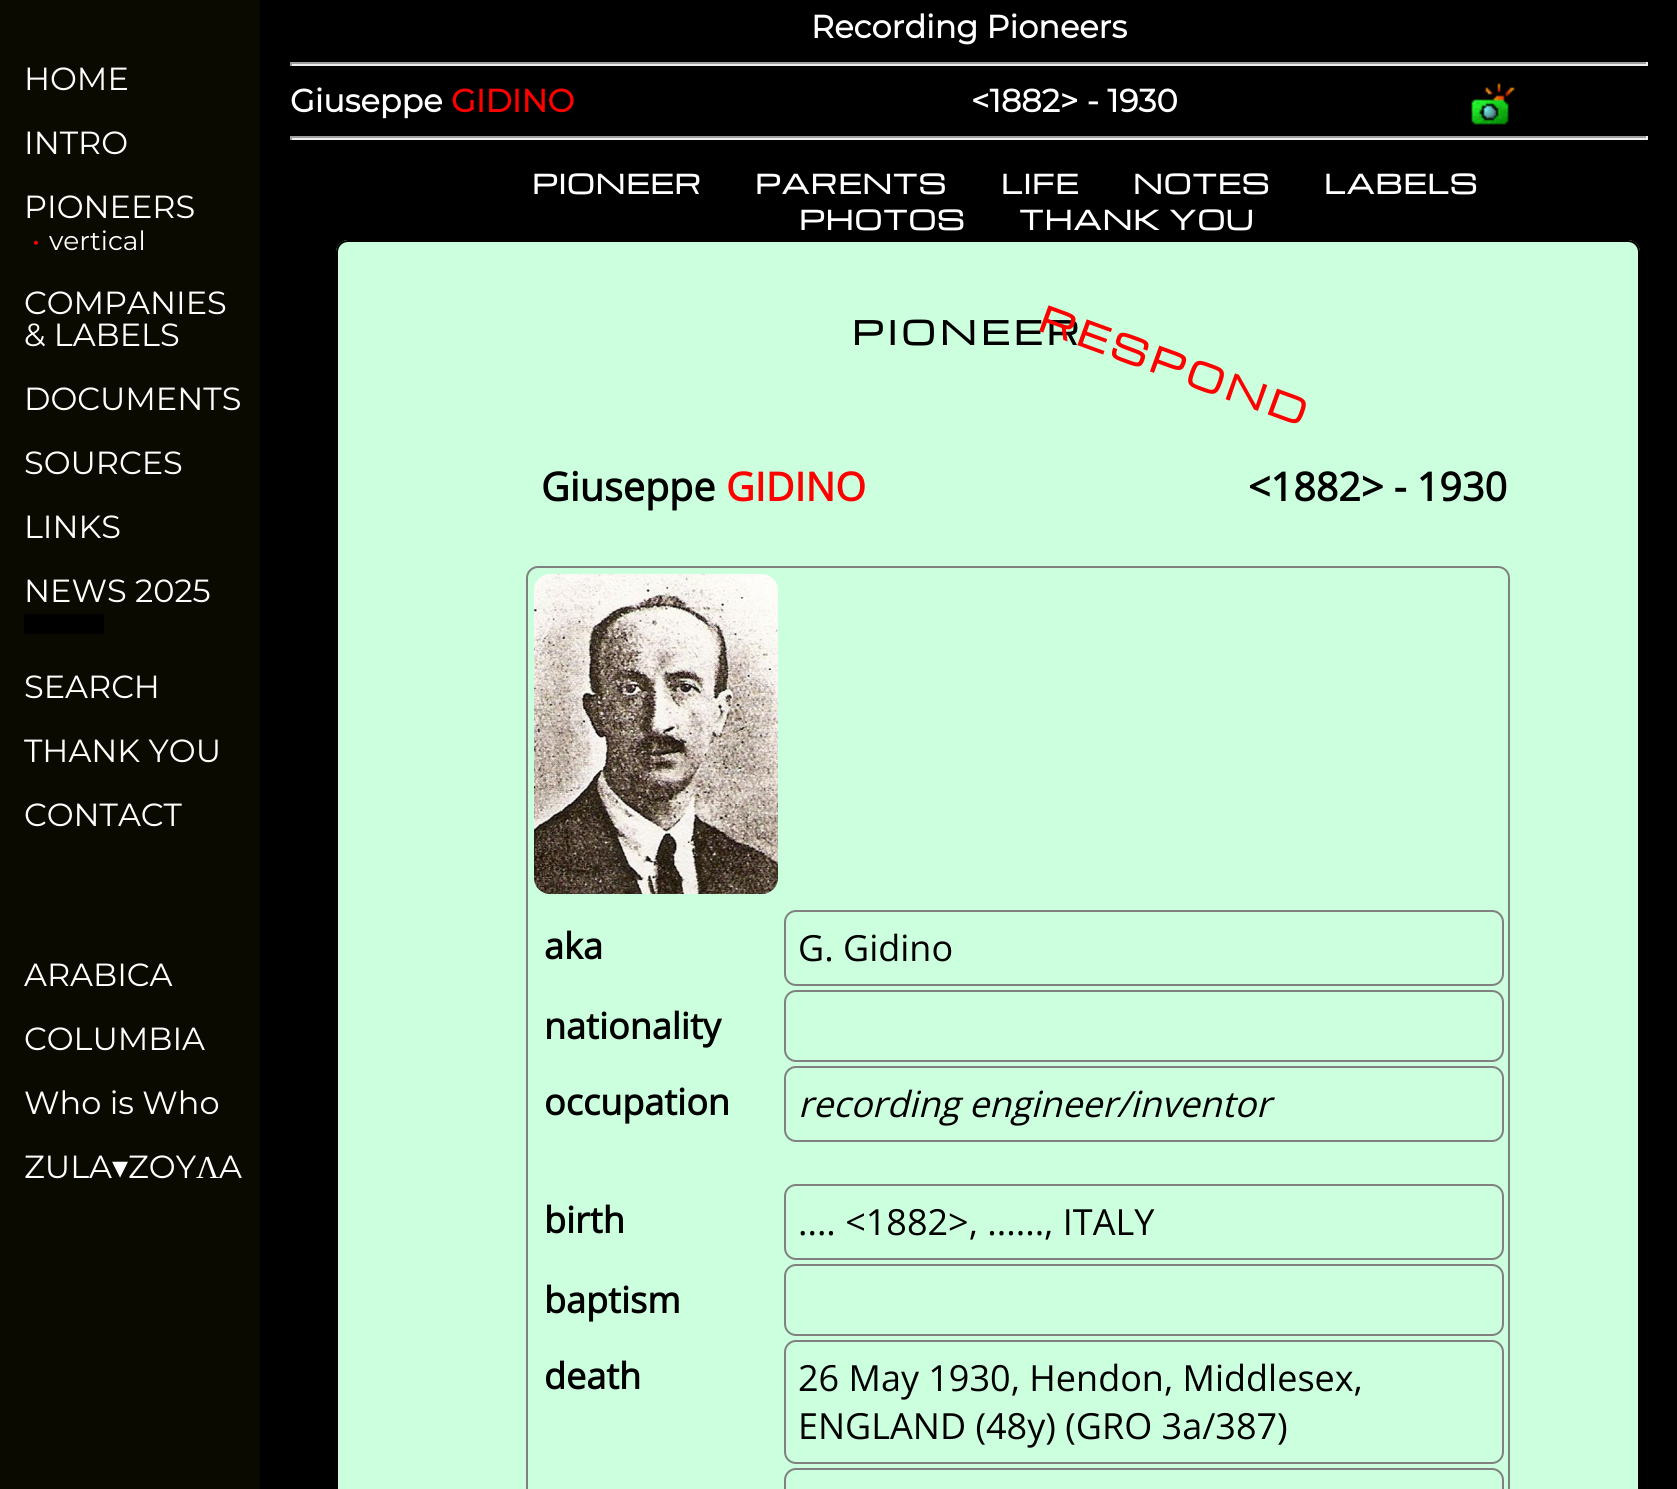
import math
import cairo

surface = cairo.ImageSurface(cairo.FORMAT_RGB24, 1677, 1489)
c = cairo.Context(surface)
options = cairo.FontOptions()
options.set_hint_metrics(cairo.HINT_METRICS_OFF)
options.set_hint_style(cairo.HINT_STYLE_NONE)
c.set_font_options(options)
c.set_miter_limit(4)
def C(code):
 c.set_source_rgb(*(v / 255 for v in bytes.fromhex(code[-6:])))
def F(family, size, italic, bold):
 c.select_font_face(family, cairo.FONT_SLANT_ITALIC if italic else cairo.FONT_SLANT_NORMAL, cairo.FONT_WEIGHT_BOLD if bold else cairo.FONT_WEIGHT_NORMAL)
 c.set_font_size(size)
def T(x, y, s):
 c.move_to(x, y)
 c.show_text(s)
def L(x, y, s, letter, word):
 c.move_to(x, y)
 for ch in s:
  c.show_text(ch)
  c.rel_move_to(letter + word * (ch == ' '), 0)
def R(x, y, w, h):
 c.rectangle(x, y, w, h)
 c.fill()
def Q(x, y, w, h, r):
 c.new_sub_path()
 for i, (u, v) in enumerate([(x + w - r, y + h - r), (x + r, y + h - r), (x + r, y + r), (x + w - r, y + r)]):
  c.arc(u, v, r, i * math.pi / 2, (i + 1) * math.pi / 2)
 c.close_path()
def I(path, x, y, w, h):
 c.save()
 c.set_source_surface(cairo.ImageSurface.create_from_png(path), x, y)
 c.rectangle(x, y, w, h)
 c.fill()
 c.restore()
C('000000')
c.paint()
C('0a0a00')
R(0,0,260,1489)
F('Montserrat Thin',32,0,0)
C('ffffff')
T(24,90,'HOME')
T(24,154,'INTRO')
T(24,218,'PIONEERS')
F('Montserrat Thin',26.5,0,0)
C('ff0000')
T(32,250,'•')
C('ffffff')
T(49,250,'vertical')
F('Montserrat Thin',32,0,0)
T(24,314,'COMPANIES')
T(24,346,'& LABELS')
T(24,410,'DOCUMENTS')
T(24,474,'SOURCES')
T(24,538,'LINKS')
T(24,602,'NEWS 2025')
C('000000')
R(24,614,80,20)
C('ffffff')
T(24,698,'SEARCH')
T(24,762,'THANK YOU')
T(24,826,'CONTACT')
T(24,986,'ARABICA')
T(24,1050,'COLUMBIA')
T(24,1114,'Who is Who')
T(24,1178,'ZULA')
F('DejaVu Sans',32,0,0)
T(112,1178,'▾')
F('Montserrat Thin',32,0,0)
T(128,1178,'ZOY')
F('Liberation Serif',32,0,0)
T(196,1178,'Λ')
F('Montserrat Thin',32,0,0)
T(219,1178,'A')
F('Montserrat',32,0,1)
T(811,38,'Recording Pioneers')
C('9f9f9f')
R(290,62,1358,2)
C('eeeeee')
R(1646,62,2,4)
R(290,64,1358,2)
C('9f9f9f')
R(290,62,2,4)
C('ffffff')
T(290,112,'Giuseppe')
C('ff0000')
T(451,112,'GIDINO')
C('ffffff')
T(971,112,'<1882> - 1930')
I('1.png',1471,83,44,42)
C('9f9f9f')
R(290,136,1358,2)
C('eeeeee')
R(1646,136,2,4)
R(290,138,1358,2)
C('9f9f9f')
R(290,136,2,4)
F('Michroma',26,0,1)
C('ffffff')
L(532,194,'PIONEER',1.25,0)
L(755,194,'PARENTS',1.25,0)
L(1001,194,'LIFE',1.25,0)
L(1133,194,'NOTES',1.25,0)
L(1324,194,'LABELS',1.25,0)
L(799,230,'PHOTOS',1.25,0)
L(1019,230,'THANK YOU',1.25,0)
C('ccffdd')
c.new_path()
c.move_to(348,240)
c.line_to(1628,240)
c.curve_to(1634.5,240,1640,245.5,1640,252)
c.line_to(1640,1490)
c.line_to(336,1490)
c.line_to(336,252)
c.curve_to(336,245.5,341.5,240,348,240)
c.close_path()
c.fill()
Q(337,241,1302,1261,11)
C('000000')
c.stroke()
F('Michroma',32,0,1)
L(852,345,'PIONEER',4.75,0)
F('Michroma',35.25,0,1)
C('ff0000')
c.save()
c.translate(1036,330)
c.rotate(20 * math.pi / 180)
L(0,0,'RESPOND',4.75,0)
c.restore()
F('Open Sans',39.5,0,1)
C('000000')
T(541,501,'Giuseppe')
C('ff0000')
T(726,501,'GIDINO')
C('000000')
T(1248,501,'<1882> - 1930')
Q(527,567,982,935,11)
C('808080')
c.stroke()
I('2.png',534,574,244,320)
F('Open Sans',36,0,1)
C('000000')
T(544,959,'aka')
Q(785,911,718,74,11)
C('808080')
c.stroke()
F('Open Sans',36,0,0)
C('000000')
T(798,961,'G. Gidino')
F('Open Sans',36,0,1)
T(544,1039,'nationality')
Q(785,991,718,70,11)
C('808080')
c.stroke()
C('000000')
T(544,1115,'occupation')
Q(785,1067,718,74,11)
C('808080')
c.stroke()
F('Open Sans',36,1,0)
C('000000')
T(798,1117,'recording engineer/inventor')
F('Open Sans',36,0,1)
T(544,1233,'birth')
Q(785,1185,718,74,11)
C('808080')
c.stroke()
F('Open Sans',36,0,0)
C('000000')
T(798,1235,'.... <1882>, ......, ITALY')
F('Open Sans',36,0,1)
T(544,1313,'baptism')
Q(785,1265,718,70,11)
C('808080')
c.stroke()
C('000000')
T(544,1389,'death')
Q(785,1341,718,122,11)
C('808080')
c.stroke()
F('Open Sans',36,0,0)
C('000000')
T(798,1391,'26 May 1930, Hendon, Middlesex,')
T(798,1439,'ENGLAND (48y) (GRO 3a/387)')
Q(785,1469,718,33,11)
C('808080')
c.stroke()
surface.write_to_png('o.png')
